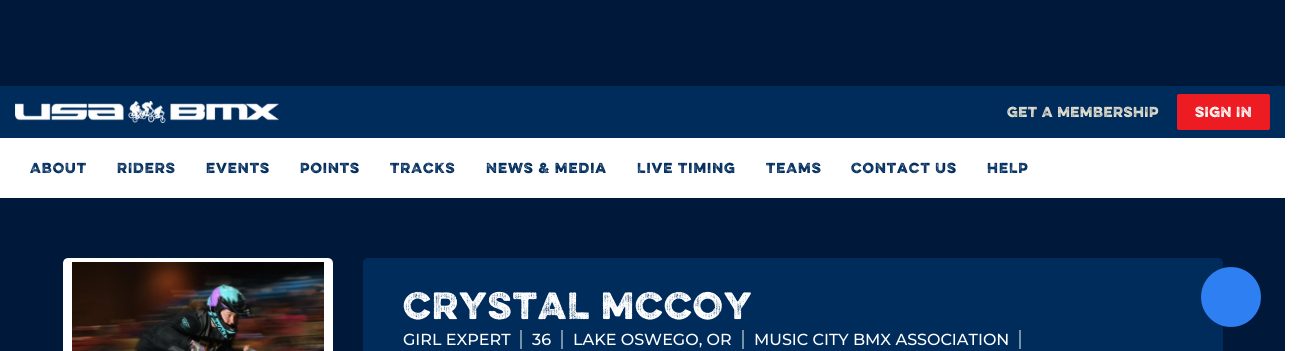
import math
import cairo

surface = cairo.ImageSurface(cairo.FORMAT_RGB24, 1300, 351)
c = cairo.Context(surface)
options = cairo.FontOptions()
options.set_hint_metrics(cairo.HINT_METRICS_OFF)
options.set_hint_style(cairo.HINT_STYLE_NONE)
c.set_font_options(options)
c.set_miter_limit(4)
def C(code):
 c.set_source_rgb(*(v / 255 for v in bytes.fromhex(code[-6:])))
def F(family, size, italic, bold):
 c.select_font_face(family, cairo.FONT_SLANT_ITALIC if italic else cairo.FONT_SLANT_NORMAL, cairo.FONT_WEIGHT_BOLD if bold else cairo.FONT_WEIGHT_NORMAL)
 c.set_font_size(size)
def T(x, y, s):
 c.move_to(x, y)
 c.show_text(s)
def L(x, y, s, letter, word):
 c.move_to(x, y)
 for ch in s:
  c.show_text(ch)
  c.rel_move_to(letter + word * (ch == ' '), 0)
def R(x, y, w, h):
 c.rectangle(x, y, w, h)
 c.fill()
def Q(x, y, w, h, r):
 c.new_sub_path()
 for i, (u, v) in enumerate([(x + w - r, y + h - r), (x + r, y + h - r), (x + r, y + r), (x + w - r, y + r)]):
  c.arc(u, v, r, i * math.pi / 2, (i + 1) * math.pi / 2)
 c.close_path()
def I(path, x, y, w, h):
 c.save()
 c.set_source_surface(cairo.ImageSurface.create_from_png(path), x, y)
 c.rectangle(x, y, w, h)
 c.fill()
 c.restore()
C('ffffff')
c.paint()
C('00183a')
R(0,0,1285,86)
C('002c5c')
R(0,86,1285,52)
I('1.png',15,101,264,22)
F('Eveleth',13,0,0)
C('e4e0cf')
L(1007,117,'GET A MEMBERSHIP',.5,0)
C('ed1c23')
Q(1177,94,93,36,2)
c.fill()
C('ffffff')
L(1195,117,'SIGN IN',.5,0)
C('002c5c')
L(30,173,'ABOUT',1,0)
L(117,173,'RIDERS',1,0)
L(206,173,'Events',1,0)
L(300,173,'Points',1,0)
L(390,173,'TRACKS',1,0)
L(486,173,'News & Media',1,0)
L(637,173,'Live Timing',1,0)
L(766,173,'TEAMS',1,0)
L(851,173,'Contact Us',1,0)
L(987,173,'HELP',1,0)
C('00183a')
R(0,198,1285,153)
C('ffffff')
Q(65,260,266,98,3)
c.fill_preserve()
c.set_line_width(4)
c.stroke()
I('2.png',72,262,252,89)
C('002c5c')
Q(363,258,860,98,5)
c.fill()
F('Eveleth',34,0,0)
C('ffffff')
L(403,319,'CRYSTAL MCCOY',1.1,0)
F('Montserrat Medium',16,0,0)
T(403,345,'GIRL EXPERT')
C('7891aa')
R(520,330,2,19)
C('ffffff')
T(532,345,'36')
C('7891aa')
R(561,330,2,19)
C('ffffff')
T(573,345,'LAKE OSWEGO, OR')
C('7891aa')
R(742,330,2,19)
C('ffffff')
T(754,345,'MUSIC CITY BMX ASSOCIATION')
C('7891aa')
R(1019,330,2,19)
C('2e7ff1')
c.new_path()
c.arc(1231,297,30,0,2 * math.pi)
c.fill()
c.rectangle(1201.5,267.5,59,59)
c.set_source_rgba(0,0,0,0.04)
c.set_line_width(1)
c.stroke()
surface.write_to_png('o.png')
